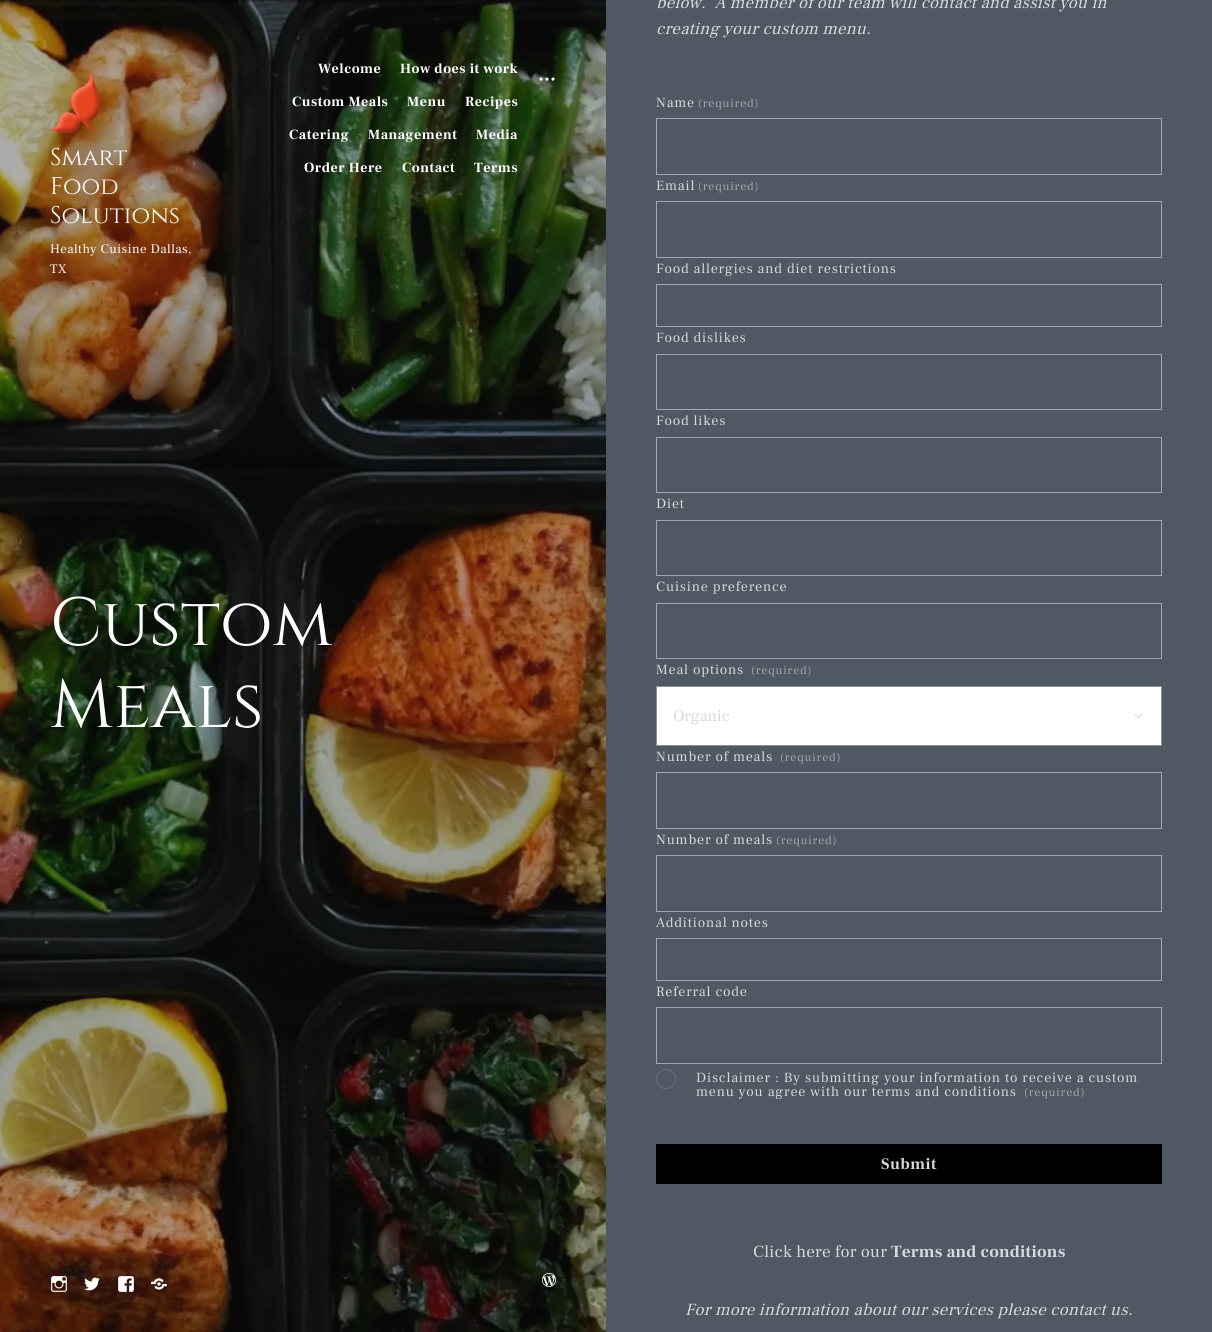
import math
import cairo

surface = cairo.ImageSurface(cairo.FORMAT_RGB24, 1212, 1332)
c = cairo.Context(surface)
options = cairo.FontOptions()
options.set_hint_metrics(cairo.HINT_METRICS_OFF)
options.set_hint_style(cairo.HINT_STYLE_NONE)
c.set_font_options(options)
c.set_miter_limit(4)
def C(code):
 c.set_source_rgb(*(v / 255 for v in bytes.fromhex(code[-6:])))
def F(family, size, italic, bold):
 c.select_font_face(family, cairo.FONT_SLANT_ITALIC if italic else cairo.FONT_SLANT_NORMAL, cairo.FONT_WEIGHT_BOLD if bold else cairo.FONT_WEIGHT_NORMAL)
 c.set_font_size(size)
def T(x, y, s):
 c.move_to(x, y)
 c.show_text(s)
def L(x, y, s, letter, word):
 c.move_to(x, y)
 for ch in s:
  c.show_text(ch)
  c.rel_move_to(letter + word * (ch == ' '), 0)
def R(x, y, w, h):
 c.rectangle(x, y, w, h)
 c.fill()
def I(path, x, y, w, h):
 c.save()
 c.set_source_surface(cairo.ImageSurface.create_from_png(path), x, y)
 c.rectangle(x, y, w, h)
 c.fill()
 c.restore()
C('4e5963')
c.paint()
I('3.png',0,0,606,1332)
F('Frank Ruhl Libre',14,0,1)
C('ffffff')
L(318,73,'Welcome',.5,0)
L(400,73,'How does it work',.5,0)
L(292,106,'Custom Meals',.5,0)
L(407,106,'Menu',.5,0)
L(465,106,'Recipes',.5,0)
L(289,139,'Catering',.5,0)
L(368,139,'Management',.5,0)
L(476,139,'Media',.5,0)
L(304,172,'Order Here',.5,0)
L(402,172,'Contact',.5,0)
L(474,172,'Terms',.5,0)
I('1.png',539,77,16,4)
I('2.png',50,70,50,63)
F('Cinzel',24,0,0)
T(50,165,'Smart')
T(50,194,'Food')
T(50,223,'Solutions')
F('Frank Ruhl Libre',13,0,0)
L(50,253,'Healthy Cuisine Dallas,',.4,0)
L(50,273,'TX',.4,0)
F('Frank Ruhl Libre',17,1,0)
C('d5dadb')
L(656,8,'below.  A member of our team will contact and assist you in',.2,0)
L(656,34,'creating your custom menu.',.2,0)
F('Frank Ruhl Libre',14,0,0)
L(656,107,'Name',.8,0)
F('Frank Ruhl Libre',12,0,0)
C('9fa6ab')
L(698,107,'(required)',.8,0)
c.rectangle(656.5,118.5,505,56)
C('9daab2')
c.set_line_width(1)
c.stroke()
F('Frank Ruhl Libre',14,0,0)
C('d5dadb')
L(656,190,'Email',.8,0)
F('Frank Ruhl Libre',12,0,0)
C('9fa6ab')
L(698,190,'(required)',.8,0)
c.rectangle(656.5,201.5,505,56)
C('9daab2')
c.stroke()
F('Frank Ruhl Libre',14,0,0)
C('d5dadb')
L(656,273,'Food allergies and diet restrictions',.8,0)
c.rectangle(656.5,284.5,505,42)
C('9daab2')
c.stroke()
C('d5dadb')
L(656,342,'Food dislikes',.8,0)
c.rectangle(656.5,354.5,505,55)
C('9daab2')
c.stroke()
C('d5dadb')
L(656,425,'Food likes',.8,0)
c.rectangle(656.5,437.5,505,55)
C('9daab2')
c.stroke()
C('d5dadb')
L(656,508,'Diet',.8,0)
c.rectangle(656.5,520.5,505,55)
C('9daab2')
c.stroke()
C('d5dadb')
L(656,591,'Cuisine preference',.8,0)
c.rectangle(656.5,603.5,505,55)
C('9daab2')
c.stroke()
C('d5dadb')
L(656,674,'Meal options',.8,0)
F('Frank Ruhl Libre',12,0,0)
C('9fa6ab')
L(751,674,'(required)',.8,0)
C('ffffff')
c.rectangle(656.5,686.5,505,59)
c.fill_preserve()
C('8c8f94')
c.stroke()
F('Frank Ruhl Libre',16,0,0)
C('d5dadb')
T(673,721,'Organic')
c.new_path()
c.move_to(1141.5,713.5)
c.line_to(1142.5,714)
c.line_to(1138,718.5)
c.line_to(1137,718)
c.close_path()
c.fill()
c.new_path()
c.move_to(1134,713.5)
c.line_to(1138.5,718)
c.line_to(1138,718.5)
c.line_to(1133.5,714)
c.close_path()
c.fill()
F('Frank Ruhl Libre',14,0,0)
L(656,761,'Number of meals',.8,0)
F('Frank Ruhl Libre',12,0,0)
C('9fa6ab')
L(780,761,'(required)',.8,0)
c.rectangle(656.5,772.5,505,56)
C('9daab2')
c.stroke()
F('Frank Ruhl Libre',14,0,0)
C('d5dadb')
L(656,844,'Number of meals',.8,0)
F('Frank Ruhl Libre',12,0,0)
C('9fa6ab')
L(776,844,'(required)',.8,0)
c.rectangle(656.5,855.5,505,56)
C('9daab2')
c.stroke()
F('Frank Ruhl Libre',14,0,0)
C('d5dadb')
L(656,927,'Additional notes',.8,0)
c.rectangle(656.5,938.5,505,42)
C('9daab2')
c.stroke()
C('d5dadb')
L(656,996,'Referral code',.8,0)
c.rectangle(656.5,1007.5,505,56)
C('9daab2')
c.stroke()
c.arc(666,1079,9.5,0,2 * math.pi)
C('69737b')
c.stroke()
C('d5dadb')
L(696,1082,'Disclaimer : By submitting your information to receive a custom',.8,0)
L(696,1096,'menu you agree with our terms and conditions',.8,0)
F('Frank Ruhl Libre',12,0,0)
C('9fa6ab')
L(1024,1096,'(required)',.8,0)
C('000000')
R(656,1144,506,40)
F('Frank Ruhl Libre',16,0,1)
C('d5dadb')
L(881,1169,'Submit',.5,0)
F('Frank Ruhl Libre',17,0,0)
L(753,1257,'Click here for our',.2,0)
F('Frank Ruhl Libre',17,0,1)
C('d4dae2')
L(891,1257,'Terms and conditions',.2,0)
F('Frank Ruhl Libre',17,1,0)
C('d5dadb')
L(685,1315,'For more information about our services please contact us.',.2,0)
F('Cinzel',68,0,0)
C('ffffff')
T(50,645,'Custom')
T(50,727,'Meals')
I('4.png',51,1276,16,16)
I('5.png',84,1277,16,14)
I('6.png',118,1276,16,16)
I('7.png',151,1278,16,12)
I('8.png',542,1273,14,14)
surface.write_to_png('o.png')
